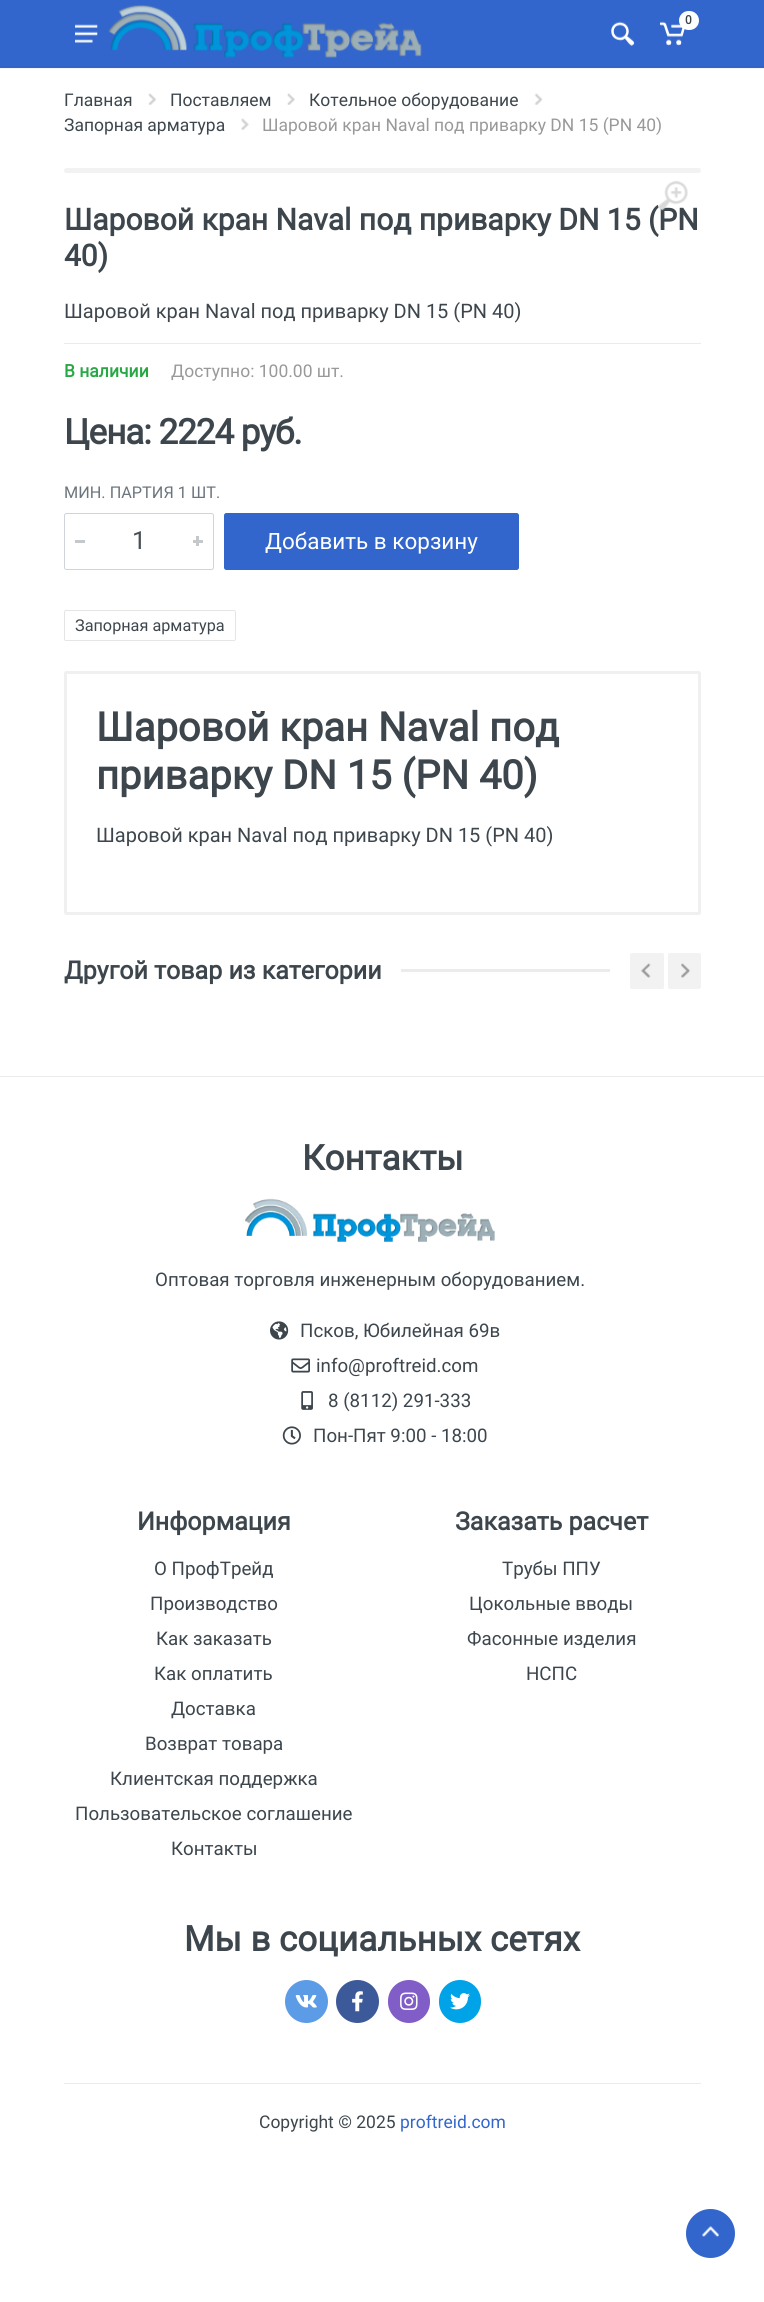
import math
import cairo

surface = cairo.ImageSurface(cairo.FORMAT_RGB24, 764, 2302)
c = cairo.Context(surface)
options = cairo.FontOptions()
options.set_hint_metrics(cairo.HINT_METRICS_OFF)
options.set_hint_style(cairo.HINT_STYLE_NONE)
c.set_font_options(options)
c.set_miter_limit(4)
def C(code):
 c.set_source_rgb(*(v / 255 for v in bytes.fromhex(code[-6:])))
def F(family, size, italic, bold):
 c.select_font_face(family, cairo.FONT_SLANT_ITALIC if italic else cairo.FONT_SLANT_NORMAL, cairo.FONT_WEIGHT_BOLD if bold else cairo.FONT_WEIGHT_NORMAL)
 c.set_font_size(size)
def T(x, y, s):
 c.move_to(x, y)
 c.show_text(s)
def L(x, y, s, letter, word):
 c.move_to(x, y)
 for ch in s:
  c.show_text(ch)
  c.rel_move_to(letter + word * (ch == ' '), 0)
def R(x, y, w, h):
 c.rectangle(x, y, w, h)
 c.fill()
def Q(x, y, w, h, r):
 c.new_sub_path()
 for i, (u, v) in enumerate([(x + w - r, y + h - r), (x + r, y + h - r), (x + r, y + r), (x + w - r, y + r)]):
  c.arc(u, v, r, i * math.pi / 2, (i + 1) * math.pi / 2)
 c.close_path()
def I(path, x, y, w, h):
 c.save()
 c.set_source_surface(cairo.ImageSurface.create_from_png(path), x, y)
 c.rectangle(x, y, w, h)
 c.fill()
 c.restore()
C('ffffff')
c.paint()
C('f5f5f5')
R(0,68,764,1)
C('3366cc')
R(0,0,764,68)
C('3162c4')
R(0,66,764,1)
I('1.png',108,5,314,53)
I('2.png',660,21,25,25)
C('ffffff')
Q(679,11,20,19,9.5)
c.fill()
F('Roboto',12,0,1)
C('3d464d')
T(685,24,'0')
I('3.png',611,21,24,25)
I('4.png',75,24,23,19)
F('Roboto',17.5,0,0)
T(64,106,'Главная')
I('5.png',148,93,8,12)
T(170,106,'Поставляем')
I('6.png',287,93,8,12)
T(309,106,'Котельное оборудование')
I('7.png',534,93,9,12)
T(64,131,'Запорная арматура')
I('8.png',241,118,8,12)
C('999999')
T(262,131,'Шаровой кран Naval под приварку DN 15 (PN 40)')
C('f2f2f2')
Q(64,168,637,5,2.5)
c.fill()
F('Roboto',30,0,1)
C('3d464d')
T(64,230,'Шаровой кран Naval под приварку DN 15 (PN')
I('9.png',658,181,30,30)
T(64,266,'40)')
F('Roboto',20,0,0)
T(64,318,'Шаровой кран Naval под приварку DN 15 (PN 40)')
C('ebebeb')
R(64,343,637,1)
F('Roboto',17.5,0,1)
C('28a745')
T(64,377,'В наличии')
F('Roboto',17.5,0,0)
C('999999')
T(171,377,'Доступно: 100.00 шт.')
F('Roboto',35,0,1)
C('3d464d')
L(64,444,'Цена: 2224 руб.',-1,0)
F('Roboto',16.25,0,0)
C('6c757d')
T(64,498,'МИН. ПАРТИЯ 1 ШТ.')
Q(64.5,513.5,149,56,2)
C('ced4da')
c.set_line_width(1)
c.stroke()
C('c5c8ca')
R(75,540,10,3)
F('Roboto',25,0,0)
C('495057')
T(132,549,'1')
C('c5c8ca')
R(193,540,10,3)
R(196,536,3,10)
C('3366cc')
Q(224.5,513.5,294,56,2)
c.fill_preserve()
c.stroke()
F('Roboto',22.5,0,0)
C('ffffff')
T(265,549,'Добавить в корзину')
Q(64.5,610.5,171,30,1.5)
C('e5e5e5')
c.stroke()
F('Roboto',16.25,0,0)
C('3d464d')
T(75,631,'Запорная арматура')
Q(65.5,672.5,634,241,1)
C('f0f0f0')
c.set_line_width(3)
c.stroke()
F('Roboto',40,0,1)
C('3d464d')
T(96,741,'Шаровой кран Naval под')
T(96,789,'приварку DN 15 (PN 40)')
F('Roboto',20,0,0)
T(96,842,'Шаровой кран Naval под приварку DN 15 (PN 40)')
F('Roboto',25,0,1)
T(64,979,'Другой товар из категории')
C('ebebeb')
R(401,969,209,3)
C('f2f2f2')
Q(630,953,34,36,2)
c.fill()
I('10.png',641,963,10,15)
Q(668,953,33,36,2)
c.fill()
I('11.png',681,963,9,15)
C('ebebeb')
R(0,1076,764,1)
F('Roboto',35,0,1)
C('3d464d')
T(302,1170,'Контакты')
I('12.png',245,1198,250,44)
F('Roboto',18.75,0,0)
T(155,1286,'Оптовая торговля инженерным оборудованием.')
I('13.png',270,1321,19,19)
T(300,1337,'Псков, Юбилейная 69в')
I('14.png',291,1358,19,15)
T(316,1372,'info@proftreid.com')
I('15.png',301,1391,12,19)
T(328,1407,'8 (8112) 291-333')
I('16.png',282,1426,19,19)
T(313,1442,'Пон-Пят 9:00 - 18:00')
F('Roboto',25,0,1)
T(137,1530,'Информация')
F('Roboto',18.75,0,0)
T(154,1575,'О ПрофТрейд')
T(150,1610,'Производство')
T(156,1645,'Как заказать')
T(154,1680,'Как оплатить')
T(171,1715,'Доставка')
T(145,1750,'Возврат товара')
T(110,1785,'Клиентская поддержка')
T(75,1820,'Пользовательское соглашение')
T(171,1855,'Контакты')
F('Roboto',25,0,1)
T(455,1530,'Заказать расчет')
F('Roboto',18.75,0,0)
T(502,1575,'Трубы ППУ')
T(469,1610,'Цокольные вводы')
T(467,1645,'Фасонные изделия')
T(526,1680,'НСПС')
F('Roboto',35,0,1)
T(184,1951,'Мы в социальных сетях')
C('5c9ce6')
c.new_path()
c.arc(306.5,2001.5,21.5,0,2 * math.pi)
c.fill()
I('17.png',295,1995,22,13)
C('3c5a99')
c.arc(357.5,2001.5,21.5,0,2 * math.pi)
c.fill()
I('18.png',352,1991,11,21)
C('815dc7')
Q(388,1980,42,43,21)
c.fill()
I('19.png',400,1992,18,18)
C('00a2e8')
Q(439,1980,42,43,21)
c.fill()
I('20.png',450,1993,20,17)
C('ebebeb')
R(64,2083,637,1)
F('Roboto',17.5,0,0)
C('3d464d')
T(259,2128,'Copyright © 2025')
C('3366cc')
T(400,2128,'proftreid.com')
c.new_path()
c.arc(710.5,2233.5,24.5,0,2 * math.pi)
c.fill()
I('21.png',702,2226,17,11)
surface.write_to_png('o.png')
